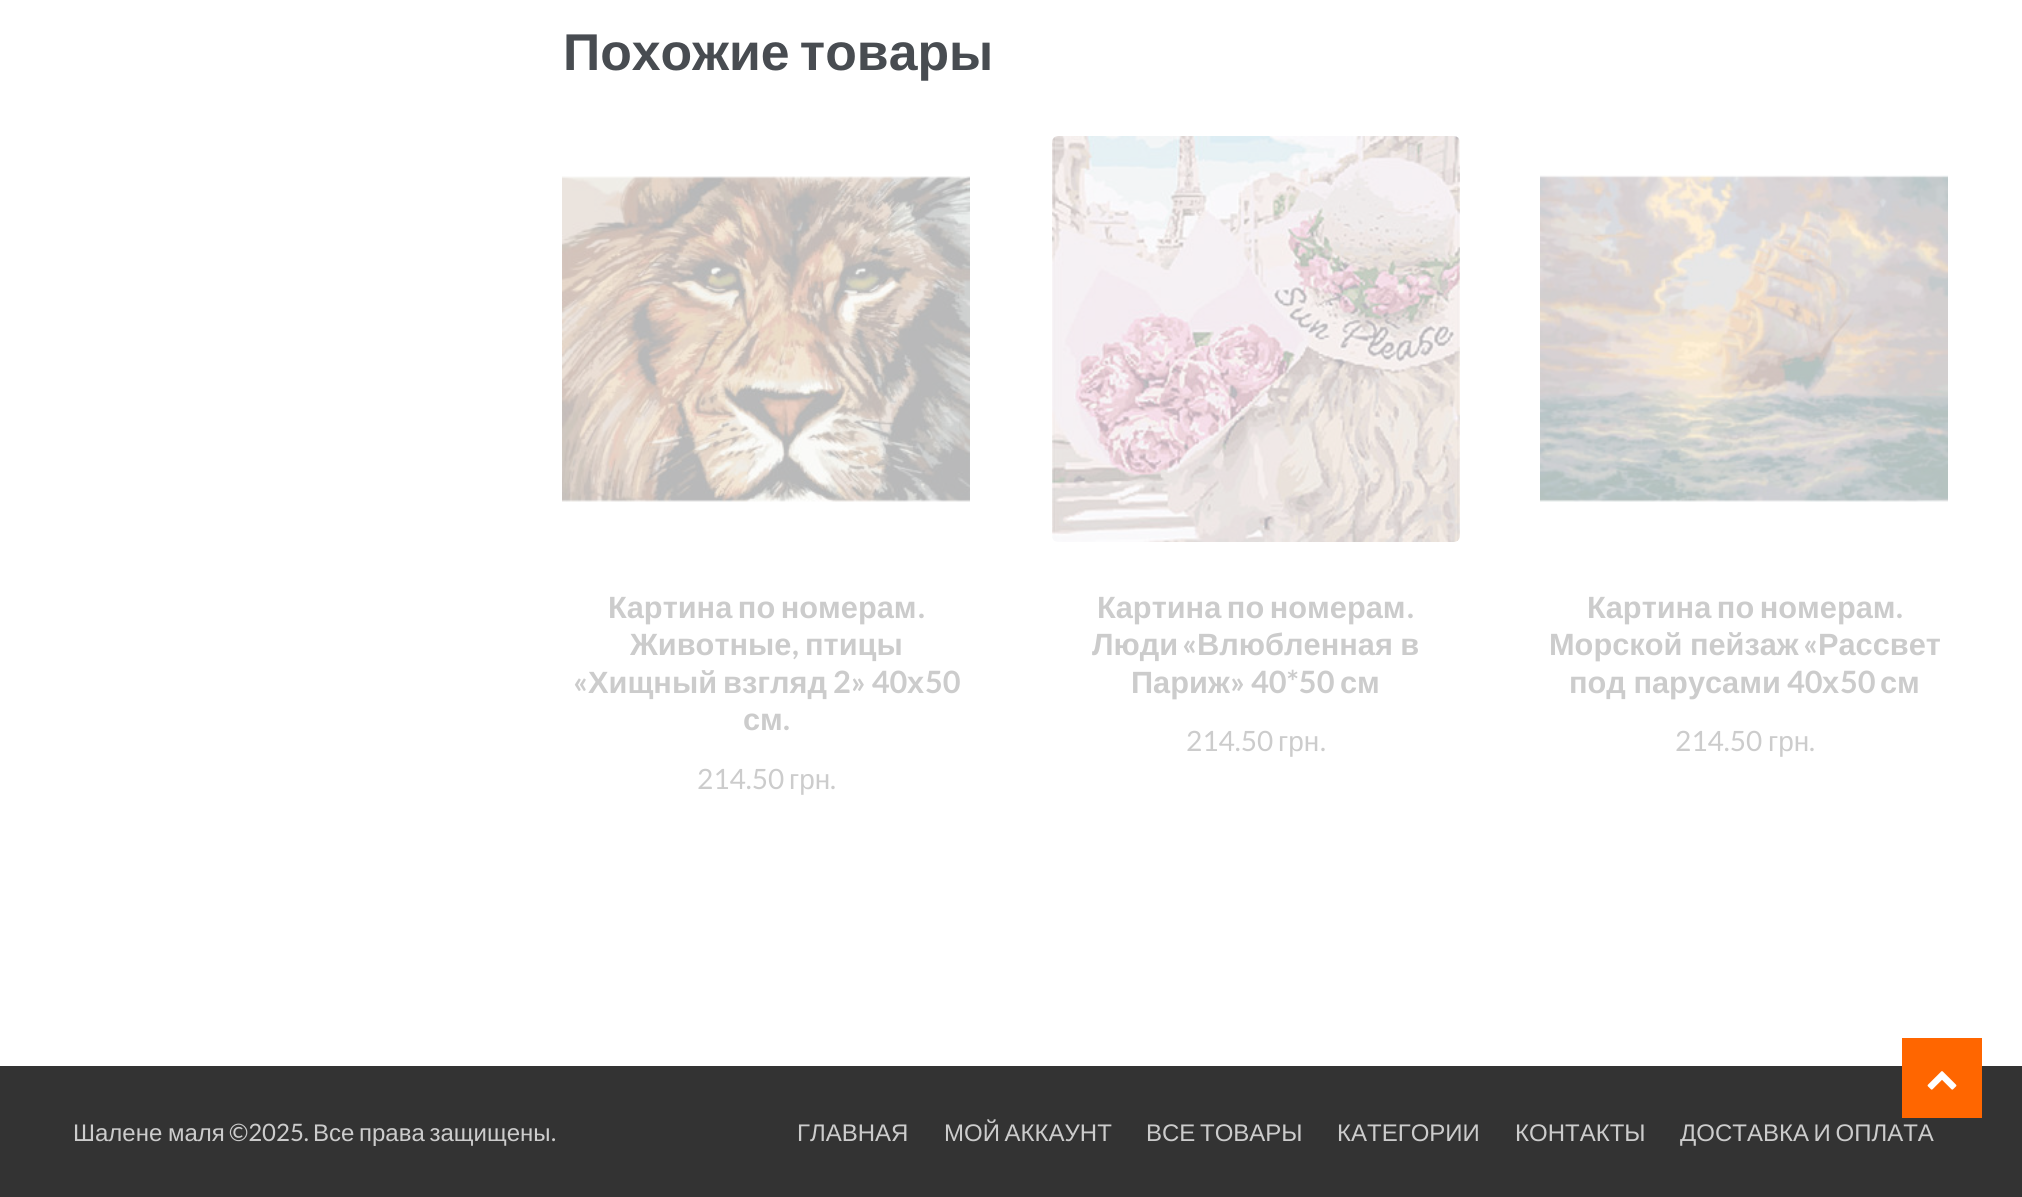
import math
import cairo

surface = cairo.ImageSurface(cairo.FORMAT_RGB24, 2022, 1197)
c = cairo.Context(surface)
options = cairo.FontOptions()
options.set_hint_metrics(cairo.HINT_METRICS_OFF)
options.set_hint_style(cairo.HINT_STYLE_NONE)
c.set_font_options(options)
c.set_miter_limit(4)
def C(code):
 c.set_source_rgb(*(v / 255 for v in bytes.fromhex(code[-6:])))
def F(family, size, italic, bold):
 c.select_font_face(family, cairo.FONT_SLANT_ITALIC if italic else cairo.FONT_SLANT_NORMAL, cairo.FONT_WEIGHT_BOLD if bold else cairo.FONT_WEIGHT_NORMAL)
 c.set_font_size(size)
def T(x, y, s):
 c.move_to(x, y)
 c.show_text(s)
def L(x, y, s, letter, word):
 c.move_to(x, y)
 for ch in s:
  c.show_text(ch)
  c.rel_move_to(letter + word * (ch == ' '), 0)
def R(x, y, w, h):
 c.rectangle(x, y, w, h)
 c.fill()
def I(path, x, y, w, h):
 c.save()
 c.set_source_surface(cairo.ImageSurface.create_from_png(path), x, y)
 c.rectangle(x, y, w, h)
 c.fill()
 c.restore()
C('ffffff')
c.paint()
F('Liberation Sans',51.75,0,1)
C('484c51')
L(563,70,'Похожие товары',0,-4)
I('1.png',562,176,408,326)
F('Liberation Sans',30.75,0,1)
C('cccccc')
L(608,618,'Картина по номерам',0,-3)
F('Lato',30.75,0,1)
T(918,618,'.')
F('Liberation Sans',30.75,0,1)
T(630,655,'Животные')
F('Lato',30.75,0,1)
T(792,655,',')
F('Liberation Sans',30.75,0,1)
T(805,655,'птицы')
F('Lato',30.75,0,1)
T(573,693,'«')
F('Liberation Sans',30.75,0,1)
T(588,693,'Хищный')
T(723,693,'взгляд')
F('Lato',30.75,0,1)
T(833,693,'2» 40')
F('Liberation Sans',30.75,0,1)
T(907,693,'х')
F('Lato',30.75,0,1)
T(925,693,'50')
F('Liberation Sans',30.75,0,1)
T(743,730,'см')
F('Lato',30.75,0,1)
T(783,730,'.')
F('Lato',28,0,0)
T(697,789,'214.50')
F('Liberation Sans',28,0,0)
T(789,789,'грн')
F('Lato',28,0,0)
T(830,789,'.')
I('2.png',1052,136,408,406)
F('Liberation Sans',30.75,0,1)
L(1097,618,'Картина по номерам',0,-3)
F('Lato',30.75,0,1)
T(1407,618,'.')
F('Liberation Sans',30.75,0,1)
T(1092,655,'Люди')
F('Lato',30.75,0,1)
T(1182,655,'«')
F('Liberation Sans',30.75,0,1)
L(1197,655,'Влюбленная в',0,-1)
T(1131,693,'Париж')
F('Lato',30.75,0,1)
T(1230,693,'» 40*50')
F('Liberation Sans',30.75,0,1)
T(1340,693,'см')
F('Lato',28,0,0)
T(1186,751,'214.50')
F('Liberation Sans',28,0,0)
T(1278,751,'грн')
F('Lato',28,0,0)
T(1320,751,'.')
I('3.png',1540,175,408,327)
F('Liberation Sans',30.75,0,1)
L(1587,618,'Картина по номерам',0,-3)
F('Lato',30.75,0,1)
T(1896,618,'.')
F('Liberation Sans',30.75,0,1)
L(1549,655,'Морской пейзаж',0,-1)
F('Lato',30.75,0,1)
T(1803,655,'«')
F('Liberation Sans',30.75,0,1)
T(1818,655,'Рассвет')
L(1569,693,'под парусами',0,-1)
F('Lato',30.75,0,1)
T(1787,693,'40')
F('Liberation Sans',30.75,0,1)
T(1822,693,'х')
F('Lato',30.75,0,1)
T(1840,693,'50')
F('Liberation Sans',30.75,0,1)
T(1880,693,'см')
F('Lato',28,0,0)
T(1675,751,'214.50')
F('Liberation Sans',28,0,0)
T(1768,751,'грн')
F('Lato',28,0,0)
T(1809,751,'.')
C('333333')
R(0,1066,2022,131)
C('ff6600')
R(1902,1038,80,80)
I('4.png',1927,1071,30,19)
F('Liberation Sans',24,0,0)
C('cccccc')
L(73,1141,'Шалене маля',0,-1)
F('Lato',24,0,0)
T(229,1141,'©2025.')
F('Liberation Sans',24,0,0)
L(313,1141,'Все права защищены',0,-2)
F('Lato',24,0,0)
T(551,1141,'.')
F('Liberation Sans',24,0,0)
T(797,1141,'ГЛАВНАЯ')
L(944,1141,'МОЙ АККАУНТ',0,-2)
L(1146,1141,'ВСЕ ТОВАРЫ',0,-2)
T(1337,1141,'КАТЕГОРИИ')
T(1515,1141,'КОНТАКТЫ')
L(1680,1141,'ДОСТАВКА И ОПЛАТА',0,-2)
surface.write_to_png('o.png')
